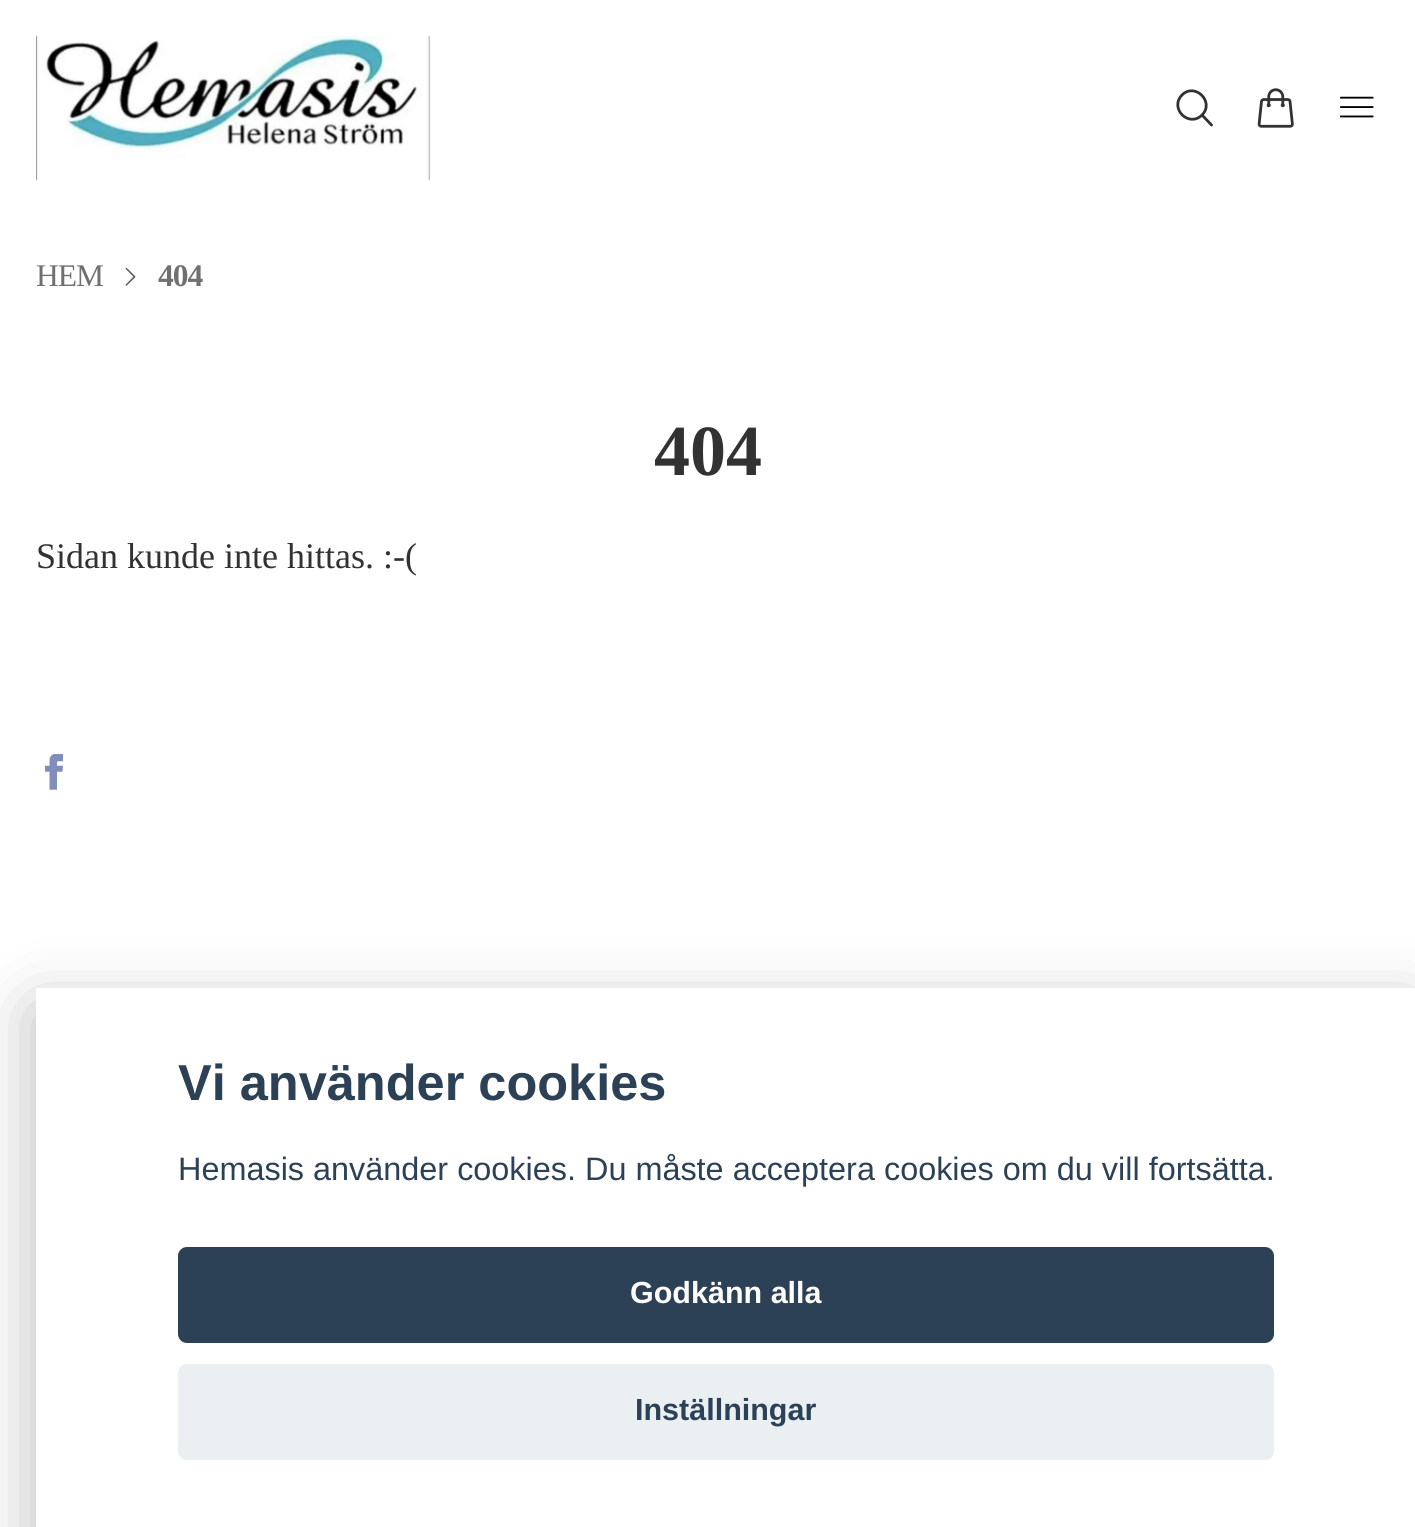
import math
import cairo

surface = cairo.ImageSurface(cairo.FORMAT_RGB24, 1415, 1527)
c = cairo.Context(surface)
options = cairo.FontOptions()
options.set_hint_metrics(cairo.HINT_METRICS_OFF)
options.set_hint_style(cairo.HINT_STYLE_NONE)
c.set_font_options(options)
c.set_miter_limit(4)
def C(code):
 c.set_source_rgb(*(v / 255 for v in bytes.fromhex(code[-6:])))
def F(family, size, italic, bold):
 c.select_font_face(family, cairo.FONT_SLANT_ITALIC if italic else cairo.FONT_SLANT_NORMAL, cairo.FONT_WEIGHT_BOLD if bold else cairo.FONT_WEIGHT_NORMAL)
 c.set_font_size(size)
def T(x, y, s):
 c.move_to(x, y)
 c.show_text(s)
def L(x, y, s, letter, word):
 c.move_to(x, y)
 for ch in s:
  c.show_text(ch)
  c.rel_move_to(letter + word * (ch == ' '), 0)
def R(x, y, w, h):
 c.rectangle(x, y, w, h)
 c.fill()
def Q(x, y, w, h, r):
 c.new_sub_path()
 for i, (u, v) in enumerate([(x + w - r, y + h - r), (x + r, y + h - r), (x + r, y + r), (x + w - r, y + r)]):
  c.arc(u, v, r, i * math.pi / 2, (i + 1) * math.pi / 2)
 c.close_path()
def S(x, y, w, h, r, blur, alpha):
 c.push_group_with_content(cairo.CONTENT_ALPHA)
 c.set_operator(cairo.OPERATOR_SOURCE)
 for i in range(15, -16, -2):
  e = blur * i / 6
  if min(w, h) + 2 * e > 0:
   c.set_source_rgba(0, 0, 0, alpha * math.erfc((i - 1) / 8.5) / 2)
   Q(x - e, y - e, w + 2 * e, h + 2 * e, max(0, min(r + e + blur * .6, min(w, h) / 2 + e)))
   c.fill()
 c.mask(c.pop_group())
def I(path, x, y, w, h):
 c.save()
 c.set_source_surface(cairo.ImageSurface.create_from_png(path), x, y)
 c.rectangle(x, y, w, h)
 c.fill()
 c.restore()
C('ffffff')
c.paint()
I('1.png',36,35,395,146)
c.new_path()
c.move_to(1211.5,125)
c.line_to(1202,115)
c.move_to(1202,115)
c.curve_to(1215,102,1195,82,1182,95)
c.curve_to(1169,108.5,1189,128,1202,115)
c.close_path()
C('323232')
c.set_line_width(2.8)
c.set_line_cap(cairo.LINE_CAP_ROUND)
c.set_line_join(cairo.LINE_JOIN_ROUND)
c.stroke()
I('2.png',1257,88,37,40)
I('3.png',1339,96,35,22)
F('Liberation Serif',31.5,0,0)
C('707070')
L(36,286,'HEM',-1,0)
I('4.png',125,268,11,18)
F('Liberation Serif',31.5,0,1)
L(158,286,'404',-1,0)
F('Liberation Serif',72,0,1)
C('323232')
T(654,475,'404')
F('Liberation Serif',36,0,0)
T(36,568,'Sidan kunde inte hittas. :-(')
I('5.png',45,754,18,36)
C('020203')
S(36,1010,1379,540,0,34,.28)
C('ffffff')
R(36,988,1379,539)
F('Liberation Sans',50.5,0,1)
C('2d4156')
T(178,1100,'Vi använder cookies')
F('Liberation Sans',32.4,0,0)
T(178,1180,'Hemasis använder cookies. Du måste acceptera cookies om du vill fortsätta.')
Q(178,1247,1096,96,9)
c.fill()
F('Liberation Sans',30.5,0,1)
C('ffffff')
T(630,1303,'Godkänn alla')
C('eaeff2')
Q(178,1364,1096,96,9)
c.fill()
C('2d4156')
T(635,1420,'Inställningar')
surface.write_to_png('o.png')
